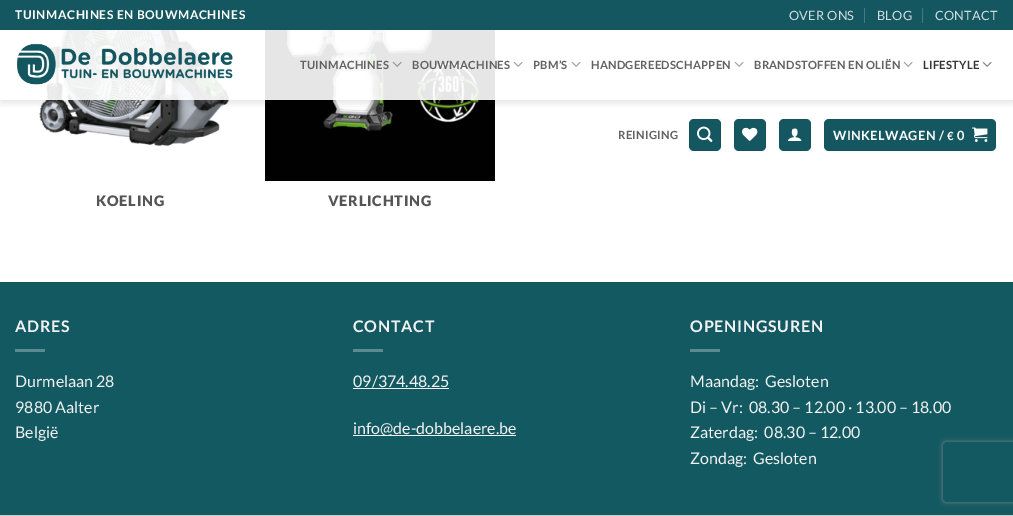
%!PS-Adobe-3.0
%%BoundingBox: 0 0 1013 516
%%LanguageLevel: 3
%%Pages: 1
%%EndComments
%%BeginProlog
/setalpha { dup .setfillconstantalpha .setstrokeconstantalpha } def
/rrect { 5 dict begin { /r /h /w /y /x } { exch def } forall
  x r add y moveto x w add y 2 copy h add r arct x w add y h add x 1 index r arct
  x y h add x y r arct x y 2 copy exch w add exch r arct closepath end } def
/softshadow { 12 dict begin { /a /b /q /h /w /y /x } { exch def } forall gsave /was 0 def
  9 -2 -9 { dup b mul 4 div /e exch def 1 sub .425 mul 2.718 exch exp 1 add a .99 .min exch div /now exch def
    1 1 now sub 1 was sub div sub setalpha /was now def
    w h .min e 2 mul add 0 gt { x e sub y e sub w e 2 mul add h e 2 mul add
      q e add b .6 mul add w h .min 2 div e add .min 0 .max rrect fill } if } for grestore end } def
/drawimage { 5 dict begin { /h /w /y /x /name } { exch def } forall
  gsave x y translate w h scale
  w h 8 [w 0 0 h 0 0] name (r) file false 3 colorimage grestore end } def
%%EndProlog
%%BeginSetup
<< /PageSize [1013 516] /PageUsesTransparency true >> setpagedevice
%%EndSetup
%%Page: 1 1
0 .pushpdf14devicefilter
0 516 translate 1 -1 scale
4 setmiterlimit
1 setgray
0 0 1013 516 rectfill
(images/9.raw) 39 30 191 117 drawimage
(images/10.raw) 265 30 230 151 drawimage
gsave
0 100 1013 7 rectclip
0 setgray
1 1 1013 100 0 5 0.15 softshadow
grestore
0.082 0.341 0.376 setrgbcolor
0 0 1013 30 rectfill
0.267 0.475 0.502 setrgbcolor
864 8 1 15 rectfill
922 8 1 15 rectfill
0.9 setalpha
1 setgray
45 30 450 70 rectfill
1 setalpha
(images/1.raw) 17 43 216 42 drawimage
(images/2.raw) 392 61 10 6 drawimage
(images/3.raw) 513 61 10 6 drawimage
(images/3.raw) 571 61 10 6 drawimage
(images/3.raw) 734 61 10 6 drawimage
(images/3.raw) 903 61 10 6 drawimage
(images/4.raw) 982 61 10 6 drawimage
0.082 0.341 0.376 setrgbcolor
689 119 32 32 5 rrect fill
0.05 setalpha
0 setgray
689.5 119.5 31 31 rectstroke
1 setalpha
(images/5.raw) 697 126 16 16 drawimage
0.082 0.341 0.376 setrgbcolor
734 119 32 32 5 rrect fill
0.05 setalpha
0 setgray
734.5 119.5 31 31 rectstroke
1 setalpha
(images/6.raw) 742 127 16 14 drawimage
0.082 0.341 0.376 setrgbcolor
779 119 32 32 5 rrect fill
0.05 setalpha
0 setgray
779.5 119.5 31 31 rectstroke
1 setalpha
(images/7.raw) 788 128 14 13 drawimage
0.082 0.341 0.376 setrgbcolor
824 119 172 32 5 rrect fill
0.05 setalpha
0 setgray
824.5 119.5 171 31 rectstroke
1 setalpha
(images/8.raw) 972 127 16 15 drawimage
0.071 0.349 0.38 setrgbcolor
0 283 1013 232 rectfill
0.067 0.333 0.361 setrgbcolor
0 282 1013 1 rectfill
0.349 0.545 0.565 setrgbcolor
15 349 30 3 rectfill
353 349 30 3 rectfill
0.945 setgray
353 388 96 1 rectfill
353 435 163 1 rectfill
0.349 0.545 0.565 setrgbcolor
690 349 30 3 rectfill
0.808 setgray
0 515 1013 1 rectfill
gsave
newpath 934 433 moveto 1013 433 lineto 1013 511 lineto 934 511 lineto closepath 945 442 moveto 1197 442 lineto 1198 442 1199 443 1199 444 curveto 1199 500 lineto 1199 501 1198 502 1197 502 curveto 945 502 lineto 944 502 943 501 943 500 curveto 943 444 lineto 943 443 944 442 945 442 curveto closepath eoclip newpath
0.502 setgray
943 442 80 60 2 2.5 1 softshadow
grestore
/Lato-Bold [12 0 0 -12 0 0] selectfont
1 setgray
15 19 moveto 0.6 0 (TUINMACHINES EN BOUWMACHINES) ashow
/Lato-Regular [12.75 0 0 -12.75 0 0] selectfont
0.816 0.867 0.875 setrgbcolor
789 20 moveto 0.25 0 (OVER ONS) ashow
877 20 moveto 0.25 0 (BLOG) ashow
935 20 moveto 0.25 0 (CONTACT) ashow
/Lato-Bold [11.25 0 0 -11.25 0 0] selectfont
0.384 setgray
300 69 moveto 0.25 0 (TUINMACHINES) ashow
412 69 moveto 0.25 0 (BOUWMACHINES) ashow
533 69 moveto 0.25 0 (PBM’S) ashow
591 69 moveto 0.25 0 (HANDGEREEDSCHAPPEN) ashow
754 69 moveto 0.25 0 (BRANDSTOFFEN EN OLIËN) ashow
0.212 setgray
923 69 moveto 0.25 0 (LIFESTYLE) ashow
0.384 setgray
618 139 moveto 0.25 0 (REINIGING) ashow
/Lato-Bold [12.75 0 0 -12.75 0 0] selectfont
1 setgray
833 140 moveto 0.4 0 (WINKELWAGEN /) ashow
/Lato-Bold [11.25 0 0 -11.25 0 0] selectfont
947 140 moveto 0.4 0 (€) ashow
/Lato-Bold [12.75 0 0 -12.75 0 0] selectfont
957 140 moveto 0.4 0 (0) ashow
/Lato-Black [14.5 0 0 -14.5 0 0] selectfont
0.333 setgray
96 206 moveto 0.75 0 (KOELING) ashow
328 206 moveto 0.75 0 (VERLICHTING) ashow
/Lato-Bold [16 0 0 -16 0 0] selectfont
0.945 setgray
15 332 moveto 0.75 0 (ADRES) ashow
/Lato-Regular [16 0 0 -16 0 0] selectfont
15 387 moveto (Durmelaan 28) show
15 413 moveto (9880 Aalter) show
15 438 moveto (België) show
/Lato-Bold [16 0 0 -16 0 0] selectfont
353 332 moveto 0.75 0 (CONTACT) ashow
/Lato-Regular [16 0 0 -16 0 0] selectfont
353 387 moveto (09/374.48.25) show
353 434 moveto (info@de-dobbelaere.be) show
/Lato-Bold [16 0 0 -16 0 0] selectfont
690 332 moveto 0.75 0 (OPENINGSUREN) ashow
/Lato-Regular [16 0 0 -16 0 0] selectfont
690 387 moveto (Maandag:  Gesloten) show
690 413 moveto (Di – Vr:  08.30 – 12.00 · 13.00 – 18.00) show
690 438 moveto (Zaterdag:  08.30 – 12.00) show
690 464 moveto (Zondag:  Gesloten) show
.poppdf14devicefilter showpage
%%EOF
